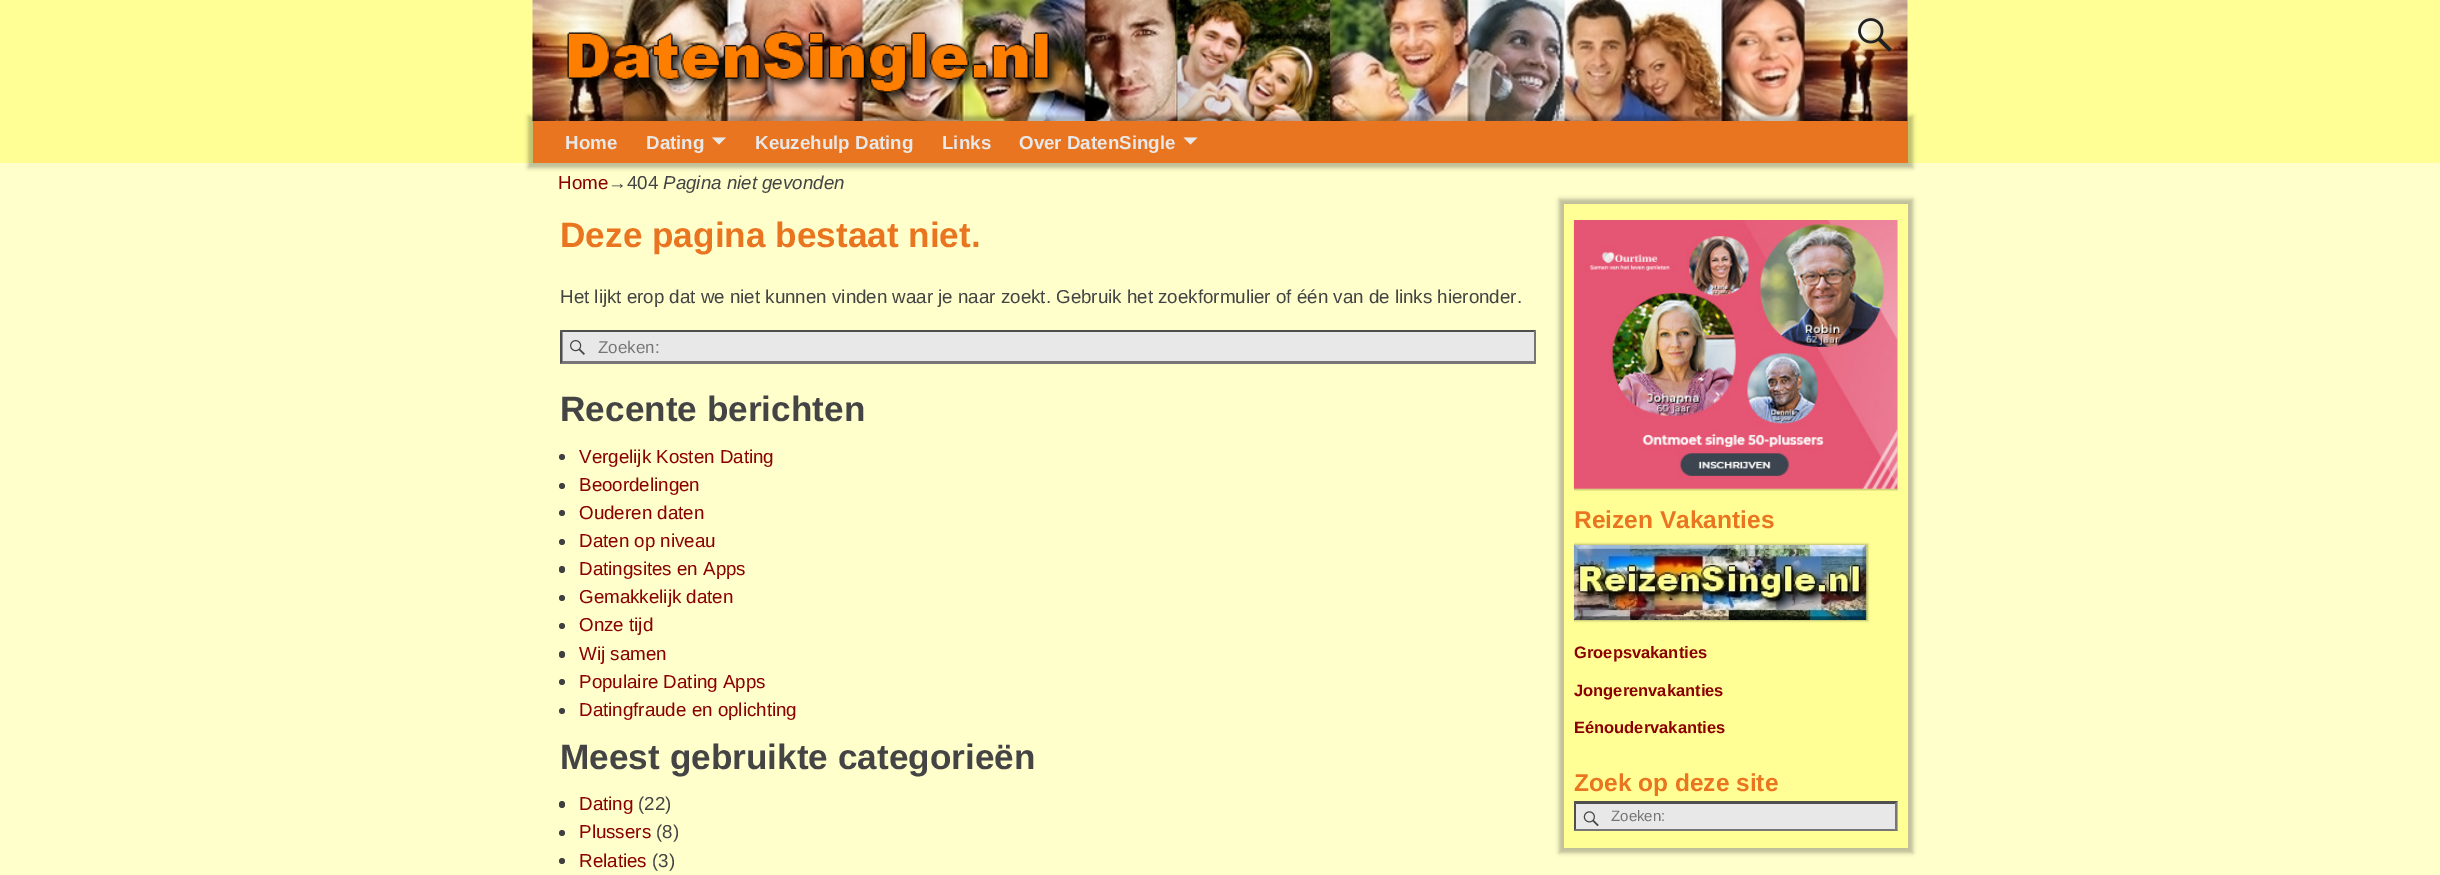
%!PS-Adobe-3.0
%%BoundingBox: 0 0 2440 875
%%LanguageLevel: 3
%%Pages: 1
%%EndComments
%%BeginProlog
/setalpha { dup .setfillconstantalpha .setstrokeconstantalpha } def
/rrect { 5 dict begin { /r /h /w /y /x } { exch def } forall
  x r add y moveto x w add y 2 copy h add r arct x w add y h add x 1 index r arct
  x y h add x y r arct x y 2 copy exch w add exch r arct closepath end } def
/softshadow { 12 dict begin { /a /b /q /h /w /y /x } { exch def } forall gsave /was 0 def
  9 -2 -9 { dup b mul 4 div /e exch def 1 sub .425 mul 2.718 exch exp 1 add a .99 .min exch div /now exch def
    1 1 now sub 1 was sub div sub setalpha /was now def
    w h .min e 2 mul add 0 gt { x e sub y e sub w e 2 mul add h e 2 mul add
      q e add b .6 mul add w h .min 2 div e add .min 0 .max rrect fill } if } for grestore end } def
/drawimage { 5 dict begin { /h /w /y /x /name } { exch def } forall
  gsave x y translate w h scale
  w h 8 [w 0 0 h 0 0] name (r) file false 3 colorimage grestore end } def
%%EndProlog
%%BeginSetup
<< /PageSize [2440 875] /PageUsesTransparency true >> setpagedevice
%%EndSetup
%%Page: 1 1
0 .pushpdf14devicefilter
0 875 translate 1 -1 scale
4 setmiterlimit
1 1 0.8 setrgbcolor
0 0 2440 875 rectfill
1 1 0.584 setrgbcolor
0 0 2440 163 rectfill
(images/1.raw) 532 0 1376 122 drawimage
(images/2.raw) 1858 18 34 34 drawimage
0 setgray
528 116 1385 52 0 2 0.25 softshadow
0.918 0.459 0.129 setrgbcolor
533 121 1375 42 rectfill
0.91 setgray
newpath 712 137.5 moveto 726 137.5 lineto 719 144.5 lineto closepath fill
newpath 1183.5 137.5 moveto 1197.5 137.5 lineto 1190.5 144.5 lineto closepath fill
560 330 976 34 rectfill
(images/3.raw) 570 340 15 15 drawimage
0.31 setgray
newpath 560 330 moveto 1536 330 lineto 1534 332 lineto 562 332 lineto closepath fill
0.463 setgray
newpath 1536 330 moveto 1536 364 lineto 1534 361 lineto 1534 332.5 lineto closepath fill
newpath 1536 364 moveto 560 364 lineto 562 361 lineto 1534 361 lineto closepath fill
0.31 setgray
newpath 560 364 moveto 560 330 lineto 562.5 332.5 lineto 562.5 361 lineto closepath fill
0.251 setgray
newpath 562 457 3 0 360 arc closepath fill
newpath 562 486 3 0 360 arc closepath fill
newpath 562 513 3 0 360 arc closepath fill
newpath 562 542 3 0 360 arc closepath fill
559 566 6 7 3 rrect fill
newpath 562 598 3 0 360 arc closepath fill
newpath 562 626 3 0 360 arc closepath fill
559 651 6 7 3 rrect fill
newpath 562 682 3 0 360 arc closepath fill
newpath 562 711 3 0 360 arc closepath fill
559 801 6 7 3 rrect fill
newpath 562 833 3 0 360 arc closepath fill
newpath 562 861 3 0 360 arc closepath fill
0 setgray
1559 199 354 654 0 2 0.25 softshadow
1 1 0.584 setrgbcolor
1564 204 344 644 rectfill
gsave
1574 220 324 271 rectclip
0 setgray
1573 219 326 271 0 1 0.25 softshadow
grestore
(images/4.raw) 1573 220 325 269 drawimage
gsave
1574 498 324 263 rectclip
0 setgray
1573 544 295 77 0 1 0.25 softshadow
grestore
(images/5.raw) 1573 545 294 75 drawimage
0.91 setgray
1574 801 324 30 rectfill
(images/6.raw) 1583 811 16 16 drawimage
0.31 setgray
newpath 1574 801 moveto 1898 801 lineto 1895 804 lineto 1576 804 lineto closepath fill
0.463 setgray
newpath 1897.5 801 moveto 1897.5 831 lineto 1895 829 lineto 1895 804 lineto closepath fill
newpath 1898 831 moveto 1574 831 lineto 1576 829 lineto 1895 829 lineto closepath fill
0.31 setgray
newpath 1574 831 moveto 1574 801 lineto 1576 804 lineto 1576 829 lineto closepath fill
/LiberationSans-Bold [18.75 0 0 -18.75 0 0] selectfont
0.91 setgray
565 149 moveto (Home) show
646 149 moveto (Dating) show
755 149 moveto (Keuzehulp Dating) show
942 149 moveto (Links) show
1019 149 moveto (Over DatenSingle) show
/LiberationSans-Regular [18.75 0 0 -18.75 0 0] selectfont
0.545 0 0 setrgbcolor
558 189 moveto (Home) show
0.267 setgray
608 189 moveto (→404) show
/LiberationSans-Italic [18.75 0 0 -18.75 0 0] selectfont
663 189 moveto (Pagina niet gevonden) show
/LiberationSans-Bold [35.2 0 0 -35.2 0 0] selectfont
0.918 0.459 0.129 setrgbcolor
560 247 moveto (Deze pagina bestaat niet.) show
/LiberationSans-Regular [18.75 0 0 -18.75 0 0] selectfont
0.267 setgray
560 303 moveto (Het lijkt erop dat we niet kunnen vinden waar je naar zoekt. Gebruik het zoekformulier of één van de links hieronder.) show
/LiberationSans-Regular [17 0 0 -17 0 0] selectfont
0.459 setgray
598 353 moveto (Zoeken:) show
/LiberationSans-Bold [35.2 0 0 -35.2 0 0] selectfont
0.267 setgray
560 421 moveto (Recente berichten) show
/LiberationSans-Regular [18.75 0 0 -18.75 0 0] selectfont
0.545 0 0 setrgbcolor
579 463 moveto (Vergelijk Kosten Dating) show
579 491 moveto (Beoordelingen) show
579 519 moveto (Ouderen daten) show
579 547 moveto (Daten op niveau) show
579 575 moveto (Datingsites en Apps) show
579 603 moveto (Gemakkelijk daten) show
579 631 moveto (Onze tijd) show
579 660 moveto (Wij samen) show
579 688 moveto (Populaire Dating Apps) show
579 716 moveto (Datingfraude en oplichting) show
/LiberationSans-Bold [35.2 0 0 -35.2 0 0] selectfont
0.267 setgray
560 769 moveto (Meest gebruikte categorieën) show
/LiberationSans-Regular [18.75 0 0 -18.75 0 0] selectfont
0.545 0 0 setrgbcolor
579 810 moveto (Dating) show
0.267 setgray
638 810 moveto (\(22\)) show
0.545 0 0 setrgbcolor
579 838 moveto (Plussers) show
0.267 setgray
656 838 moveto (\(8\)) show
0.545 0 0 setrgbcolor
579 867 moveto (Relaties) show
0.267 setgray
652 867 moveto (\(3\)) show
/LiberationSans-Bold [24.5 0 0 -24.5 0 0] selectfont
0.918 0.459 0.129 setrgbcolor
1574 528 moveto (Reizen Vakanties) show
/LiberationSans-Bold [16.5 0 0 -16.5 0 0] selectfont
0.545 0 0 setrgbcolor
1574 658 moveto (Groepsvakanties) show
1574 696 moveto (Jongerenvakanties) show
1574 733 moveto (Eénoudervakanties) show
/LiberationSans-Bold [24.5 0 0 -24.5 0 0] selectfont
0.918 0.459 0.129 setrgbcolor
1574 791 moveto (Zoek op deze site) show
/LiberationSans-Regular [15 0 0 -15 0 0] selectfont
0.459 setgray
1611 821 moveto (Zoeken:) show
.poppdf14devicefilter showpage
%%EOF
